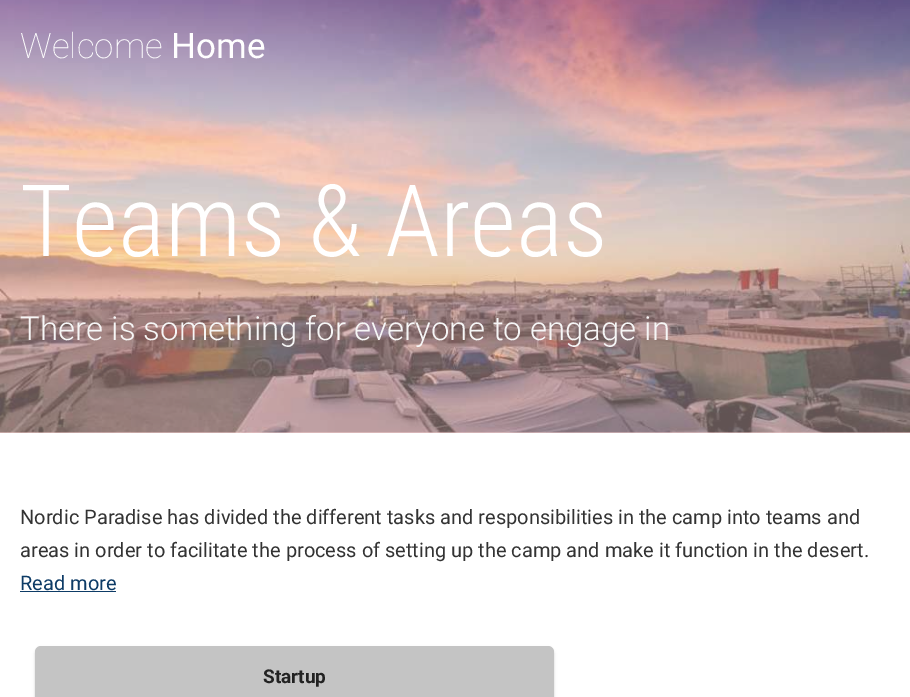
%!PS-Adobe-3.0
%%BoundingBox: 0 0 910 697
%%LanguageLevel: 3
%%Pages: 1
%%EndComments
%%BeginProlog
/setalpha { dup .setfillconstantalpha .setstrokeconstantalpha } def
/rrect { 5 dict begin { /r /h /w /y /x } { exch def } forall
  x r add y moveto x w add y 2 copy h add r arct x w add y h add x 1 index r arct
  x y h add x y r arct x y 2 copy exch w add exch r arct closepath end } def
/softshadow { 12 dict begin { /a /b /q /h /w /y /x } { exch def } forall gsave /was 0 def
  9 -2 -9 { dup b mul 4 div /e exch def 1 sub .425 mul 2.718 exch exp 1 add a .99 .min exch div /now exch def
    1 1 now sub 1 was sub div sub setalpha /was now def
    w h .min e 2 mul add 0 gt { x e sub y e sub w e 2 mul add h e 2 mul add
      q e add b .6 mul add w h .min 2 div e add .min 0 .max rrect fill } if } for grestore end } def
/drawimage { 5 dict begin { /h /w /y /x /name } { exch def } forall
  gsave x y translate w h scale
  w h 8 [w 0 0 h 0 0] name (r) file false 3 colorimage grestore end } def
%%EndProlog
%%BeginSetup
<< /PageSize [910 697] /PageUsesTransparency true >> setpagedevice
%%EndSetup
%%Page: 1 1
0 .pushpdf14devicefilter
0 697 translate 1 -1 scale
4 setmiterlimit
1 setgray
0 0 910 697 rectfill
gsave newpath 0 0 moveto 910 0 lineto 910 433 lineto 0 433 lineto closepath clip newpath
<< /ShadingType 2 /ColorSpace /DeviceRGB /Coords [455 0 455 433] /Extend [true true] /Function << /FunctionType 3 /Domain [0 1] /Functions [<< /FunctionType 2 /Domain [0 1] /C0 [0.467 0.141 0.486] /C1 [0.953 0.812 0.812] /N 1 >> << /FunctionType 2 /Domain [0 1] /C0 [0.953 0.812 0.812] /C1 [0.953 0.812 0.812] /N 1 >>] /Bounds [0.29] /Encode [0 1 0 1] >> >> shfill grestore
(images/1.raw) 0 0 910 433 drawimage
0.051 0.231 0.4 setrgbcolor
20 591 96 1 rectfill
0 setgray
35 648 519 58 6 1 0.12 softshadow
35 648 519 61 6 2 0.06 softshadow
0.769 setgray
35 646 519 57 6 rrect fill
/Roboto-Thin [35 0 0 -35 0 0] selectfont
1 setgray
20 58 moveto (Welcome) show
/Roboto-Regular [35 0 0 -35 0 0] selectfont
171 58 moveto (Home) show
/RobotoCondensed-Light [100 0 0 -100 0 0] selectfont
20 256 moveto (Teams & Areas) show
/Roboto-Light [33 0 0 -33 0 0] selectfont
0.965 setgray
20 340 moveto (There is something for everyone to engage in) show
/Roboto-Regular [20 0 0 -20 0 0] selectfont
0.2 setgray
20 524 moveto (Nordic Paradise has divided the different tasks and responsibilities in the camp into teams and) show
20 557 moveto (areas in order to facilitate the process of setting up the camp and make it function in the desert.) show
0.051 0.231 0.4 setrgbcolor
20 590 moveto (Read more) show
/Roboto-Bold [19 0 0 -19 0 0] selectfont
0.133 setgray
263 683 moveto (Startup) show
.poppdf14devicefilter showpage
%%EOF
